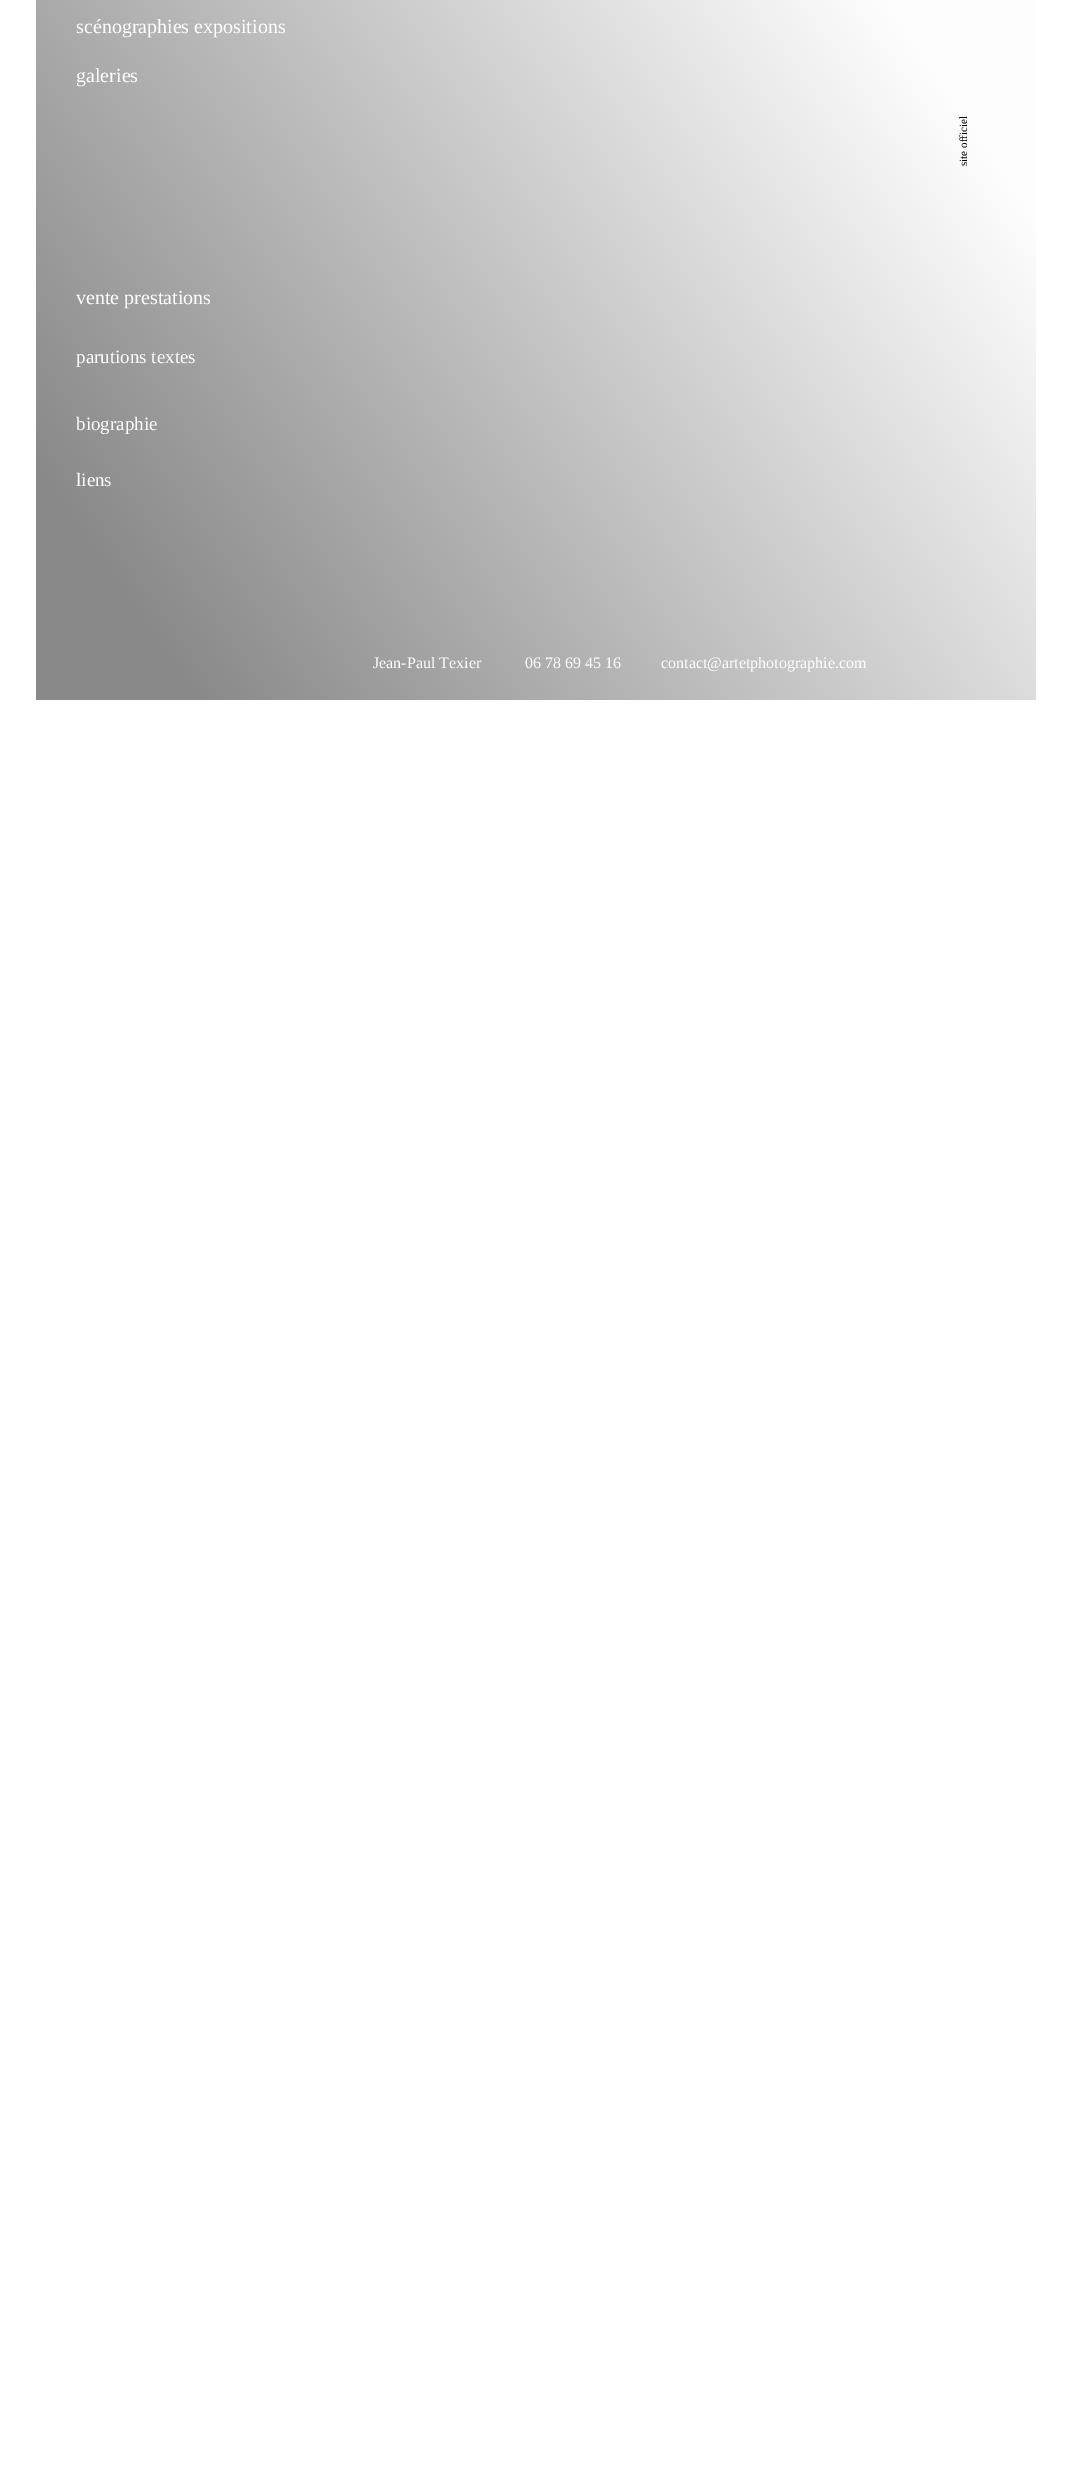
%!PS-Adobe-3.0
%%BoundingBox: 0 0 1071 2492
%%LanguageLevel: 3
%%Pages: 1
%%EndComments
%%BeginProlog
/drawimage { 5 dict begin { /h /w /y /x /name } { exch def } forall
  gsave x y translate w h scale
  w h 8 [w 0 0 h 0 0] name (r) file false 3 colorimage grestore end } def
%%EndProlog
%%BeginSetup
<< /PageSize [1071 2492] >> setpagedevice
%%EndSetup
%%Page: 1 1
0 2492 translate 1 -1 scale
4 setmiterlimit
1 setgray
0 0 1071 2492 rectfill
(images/1.raw) 36 0 1000 700 drawimage
/LiberationSerif-Regular [20 0 0 -20 0 0] selectfont
76 33 moveto (scénographies expositions) show
76 82 moveto (galeries) show
/LiberationSerif-Regular [11 0 0 -11 0 0] selectfont
0 setgray
gsave 967 166 translate -90 rotate 0 0 moveto (site officiel) show grestore
/LiberationSerif-Regular [20 0 0 -20 0 0] selectfont
1 setgray
76 304 moveto (vente prestations) show
/LiberationSerif-Regular [19 0 0 -19 0 0] selectfont
76 363 moveto (parutions textes) show
76 430 moveto (biographie) show
76 486 moveto (liens) show
/LiberationSerif-Regular [16 0 0 -16 0 0] selectfont
373 668 moveto (Jean-Paul Texier           06 78 69 45 16          contact@artetphotographie.com) show
showpage
%%EOF
